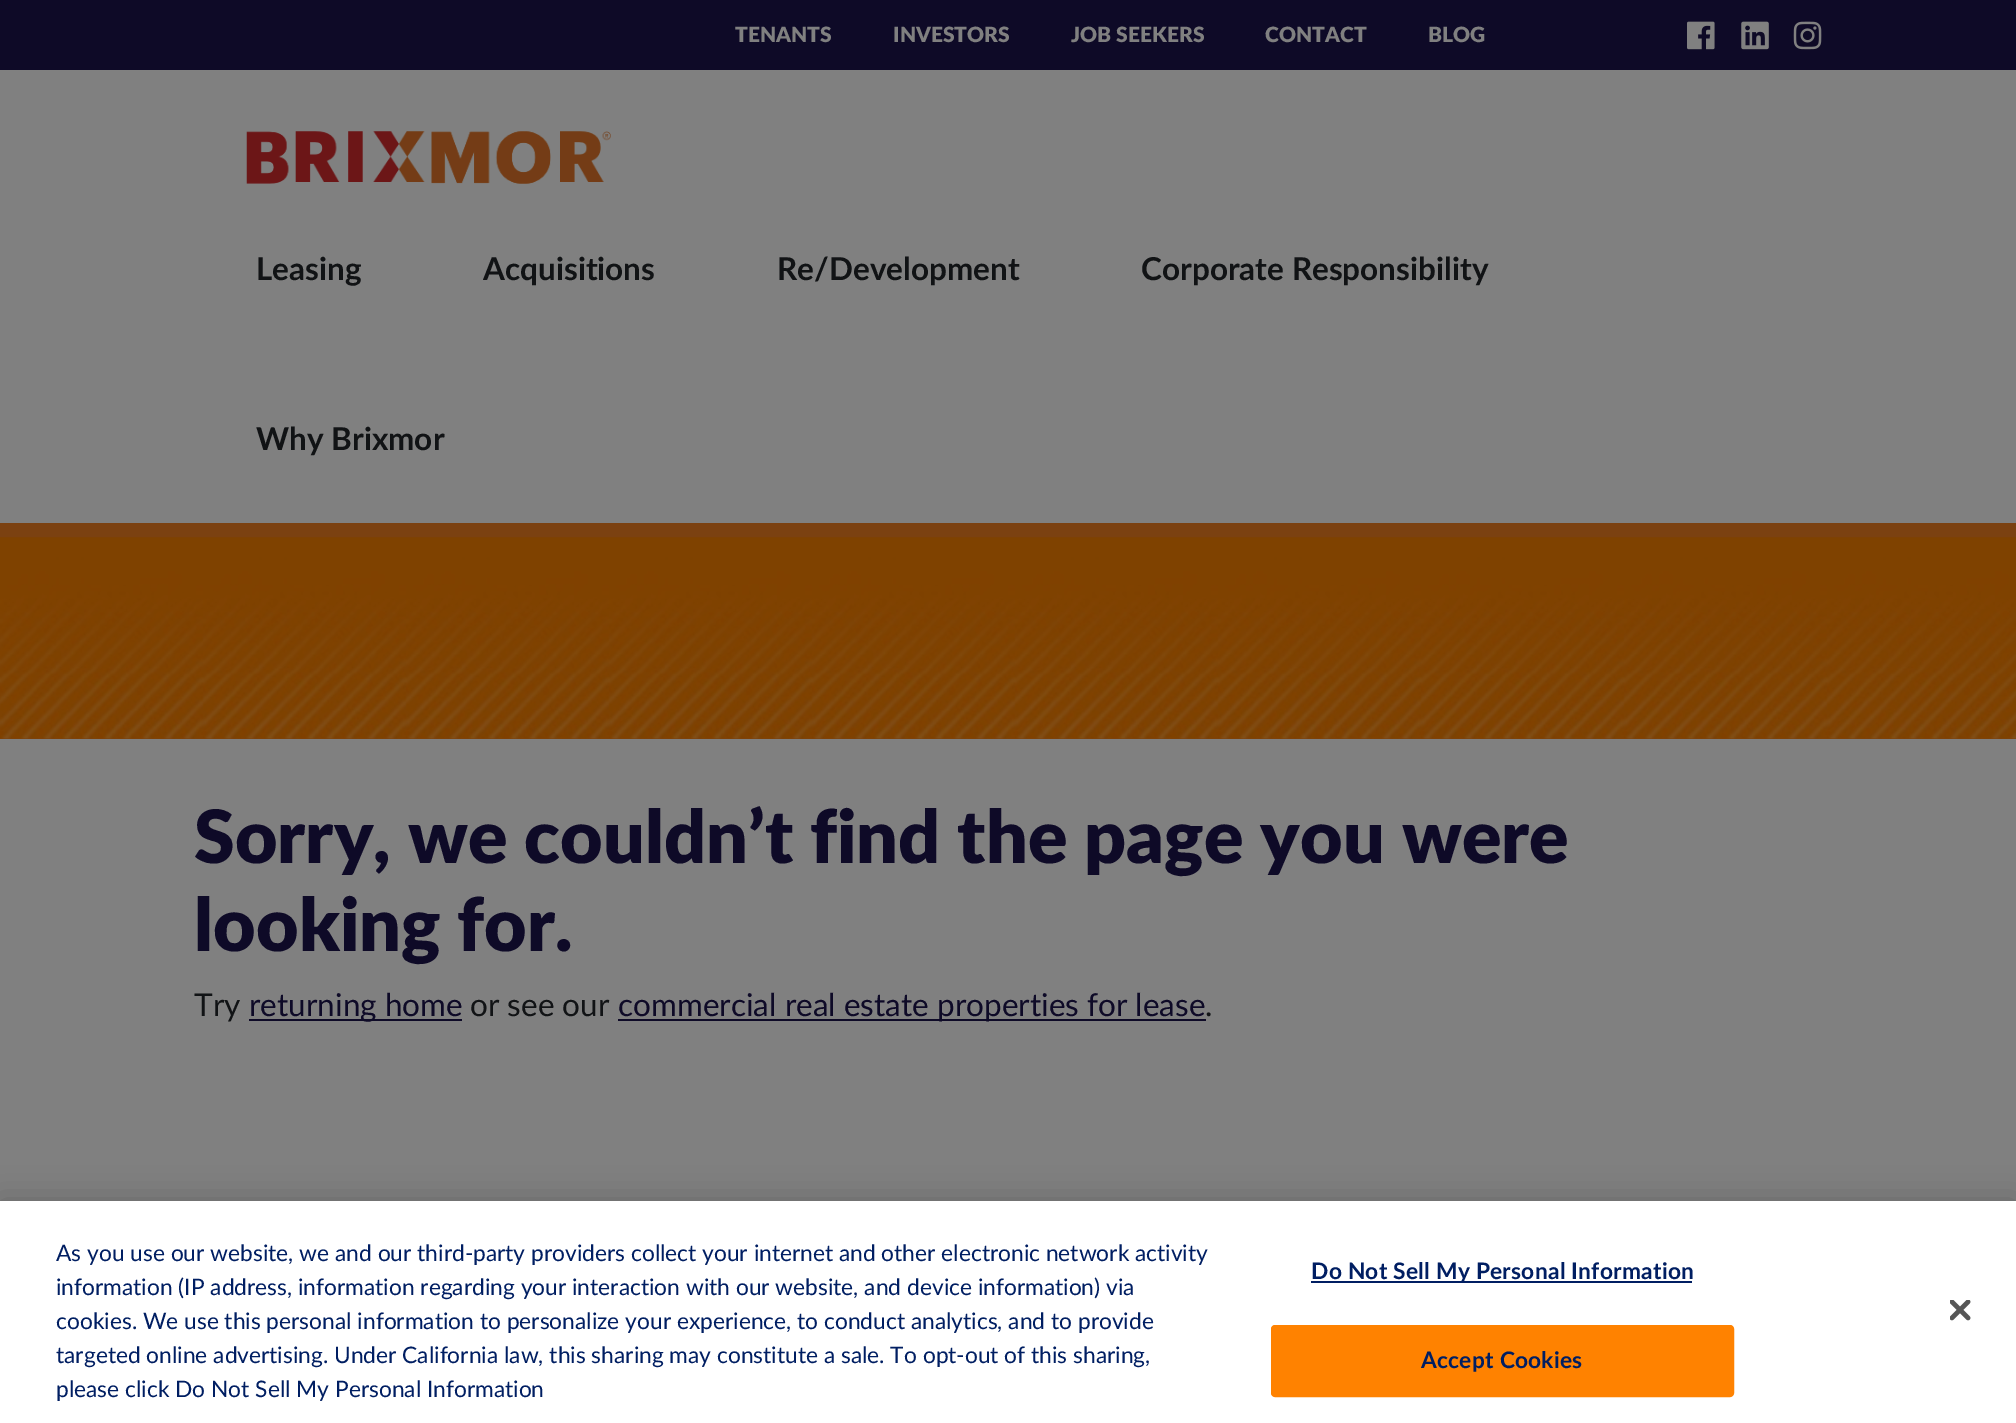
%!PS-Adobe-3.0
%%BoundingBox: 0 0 2016 1423
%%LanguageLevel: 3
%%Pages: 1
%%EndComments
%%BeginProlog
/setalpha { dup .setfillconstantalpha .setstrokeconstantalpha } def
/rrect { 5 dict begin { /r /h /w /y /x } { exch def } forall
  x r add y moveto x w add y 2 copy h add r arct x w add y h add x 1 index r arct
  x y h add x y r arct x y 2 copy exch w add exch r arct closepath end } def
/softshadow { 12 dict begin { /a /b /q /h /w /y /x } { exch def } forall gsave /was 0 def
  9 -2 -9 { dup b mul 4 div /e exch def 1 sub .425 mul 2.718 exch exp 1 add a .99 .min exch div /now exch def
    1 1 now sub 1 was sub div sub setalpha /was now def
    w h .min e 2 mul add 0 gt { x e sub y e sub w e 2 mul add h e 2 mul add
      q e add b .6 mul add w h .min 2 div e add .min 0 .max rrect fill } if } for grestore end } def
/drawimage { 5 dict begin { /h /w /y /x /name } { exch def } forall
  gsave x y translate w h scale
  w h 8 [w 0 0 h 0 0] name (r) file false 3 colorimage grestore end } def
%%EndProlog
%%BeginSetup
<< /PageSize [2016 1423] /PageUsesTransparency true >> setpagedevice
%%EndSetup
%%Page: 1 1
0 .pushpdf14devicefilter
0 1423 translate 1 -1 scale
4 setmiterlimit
0.502 setgray
0 0 2016 1423 rectfill
0.482 0.255 0.067 setrgbcolor
0 523 2016 216 rectfill
0.055 0.039 0.153 setrgbcolor
0 0 2016 70 rectfill
(images/1.raw) 1687 21 28 29 drawimage
(images/2.raw) 1741 21 28 29 drawimage
(images/3.raw) 1793 21 29 29 drawimage
(images/4.raw) 246 131 365 53 drawimage
(images/5.raw) 0 537 2016 202 drawimage
249 1019 213 2 rectfill
618 1019 588 2 rectfill
0 setgray
0 1201 2016 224 0 16 0.2 softshadow
1 setgray
0 1201 2016 222 rectfill
0 0.118 0.384 setrgbcolor
1311 1281 381 2 rectfill
1 0.51 0 setrgbcolor
1272 1326 461 70 3 rrect gsave fill grestore
2 setlinewidth
stroke
(images/6.raw) 1950 1300 21 21 drawimage
/Lato-Black [21 0 0 -21 0 0] selectfont
0.502 setgray
735 42 moveto (TENANTS) show
893 42 moveto (INVESTORS) show
1071 42 moveto (JOB SEEKERS) show
1265 42 moveto (CONTACT) show
1428 42 moveto (BLOG) show
/Lato-Bold [31.5 0 0 -31.5 0 0] selectfont
0.067 0.075 0.082 setrgbcolor
256 280 moveto (Leasing) show
483 280 moveto (Acquisitions) show
777 280 moveto (Re/Development) show
1141 280 moveto (Corporate Responsibility) show
256 450 moveto (Why Brixmor) show
/Lato-Black [73.5 0 0 -73.5 0 0] selectfont
0.055 0.039 0.153 setrgbcolor
194 863 moveto (Sorry, we couldn’t find the page you were) show
194 951 moveto (looking for.) show
/Lato-Regular [31.5 0 0 -31.5 0 0] selectfont
0.067 0.075 0.082 setrgbcolor
194 1016 moveto (Try) show
0.055 0.039 0.153 setrgbcolor
249 1016 moveto (returning home) show
0.067 0.075 0.082 setrgbcolor
470 1016 moveto (or see our) show
0.055 0.039 0.153 setrgbcolor
618 1016 moveto (commercial real estate properties for lease) show
0.067 0.075 0.082 setrgbcolor
1205 1016 moveto (.) show
/Lato-Regular [22.75 0 0 -22.75 0 0] selectfont
0 0.118 0.384 setrgbcolor
56 1261 moveto (As you use our website, we and our third-party providers collect your internet and other electronic network activity) show
56 1295 moveto (information \(IP address, information regarding your interaction with our website, and device information\) via) show
56 1329 moveto (cookies. We use this personal information to personalize your experience, to conduct analytics, and to provide) show
56 1363 moveto (targeted online advertising. Under California law, this sharing may constitute a sale. To opt-out of this sharing,) show
56 1397 moveto (please click Do Not Sell My Personal Information) show
/Lato-Bold [22.75 0 0 -22.75 0 0] selectfont
1311 1279 moveto 0.25 0 (Do Not Sell My Personal Information) ashow
1421 1368 moveto 0.25 0 (Accept Cookies) ashow
.poppdf14devicefilter showpage
%%EOF
